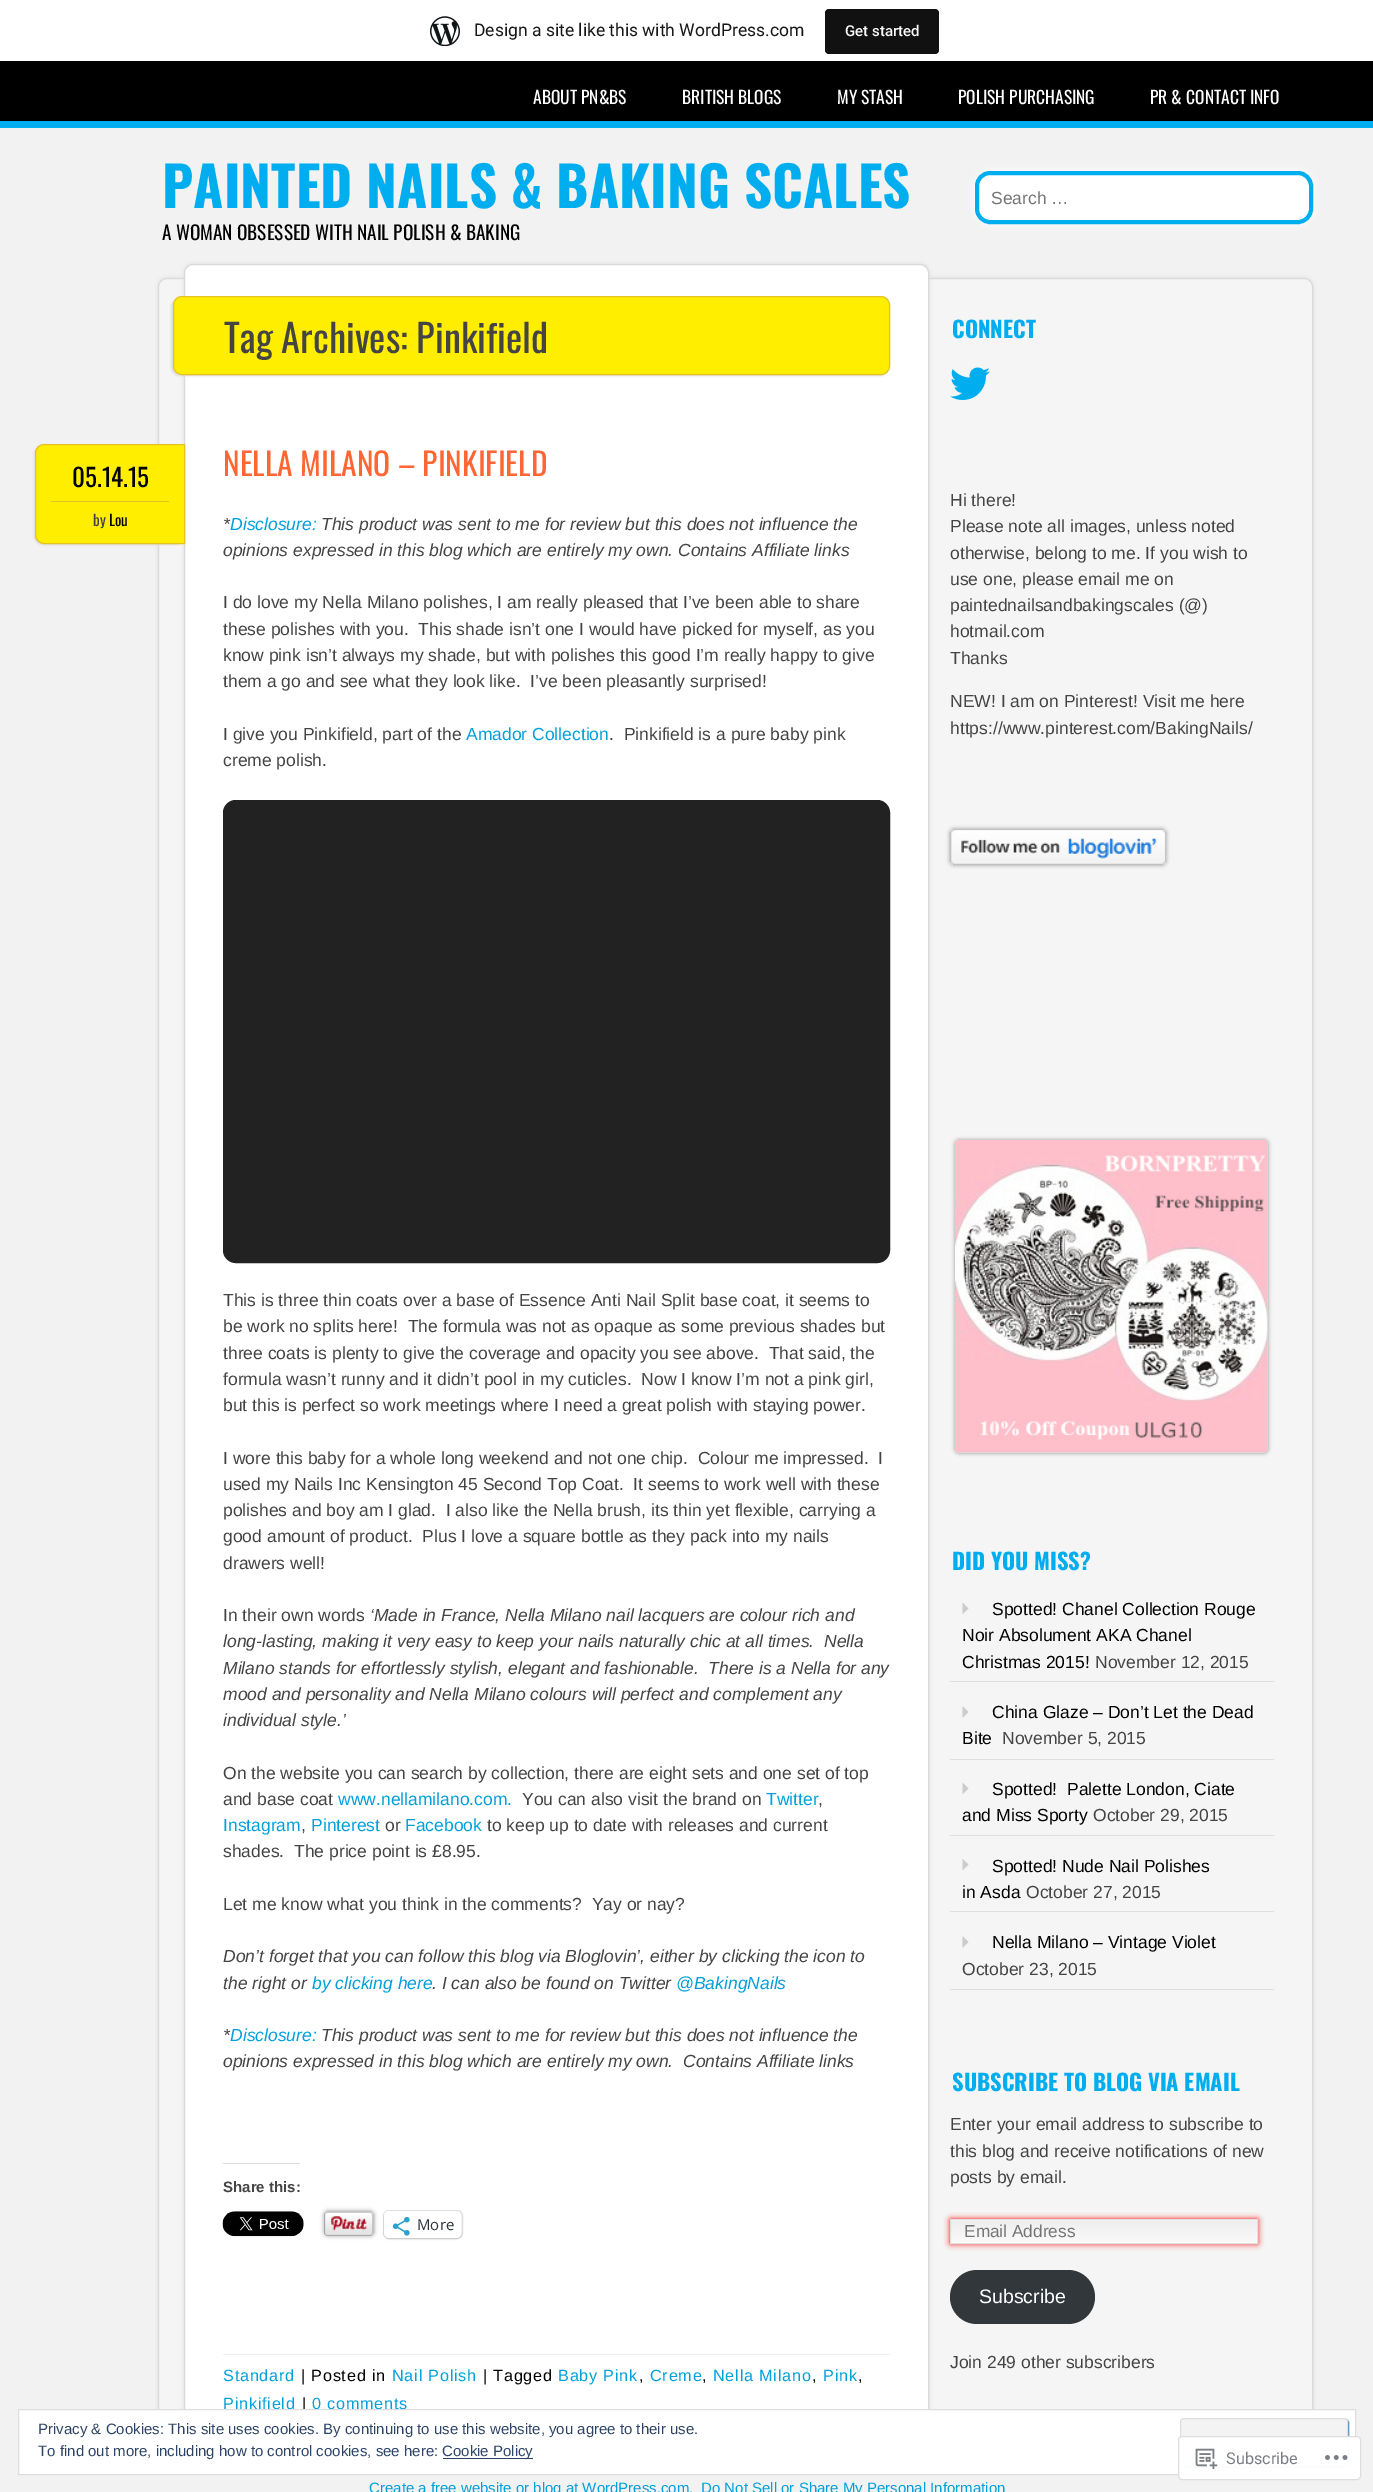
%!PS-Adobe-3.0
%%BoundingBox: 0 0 1373 2492
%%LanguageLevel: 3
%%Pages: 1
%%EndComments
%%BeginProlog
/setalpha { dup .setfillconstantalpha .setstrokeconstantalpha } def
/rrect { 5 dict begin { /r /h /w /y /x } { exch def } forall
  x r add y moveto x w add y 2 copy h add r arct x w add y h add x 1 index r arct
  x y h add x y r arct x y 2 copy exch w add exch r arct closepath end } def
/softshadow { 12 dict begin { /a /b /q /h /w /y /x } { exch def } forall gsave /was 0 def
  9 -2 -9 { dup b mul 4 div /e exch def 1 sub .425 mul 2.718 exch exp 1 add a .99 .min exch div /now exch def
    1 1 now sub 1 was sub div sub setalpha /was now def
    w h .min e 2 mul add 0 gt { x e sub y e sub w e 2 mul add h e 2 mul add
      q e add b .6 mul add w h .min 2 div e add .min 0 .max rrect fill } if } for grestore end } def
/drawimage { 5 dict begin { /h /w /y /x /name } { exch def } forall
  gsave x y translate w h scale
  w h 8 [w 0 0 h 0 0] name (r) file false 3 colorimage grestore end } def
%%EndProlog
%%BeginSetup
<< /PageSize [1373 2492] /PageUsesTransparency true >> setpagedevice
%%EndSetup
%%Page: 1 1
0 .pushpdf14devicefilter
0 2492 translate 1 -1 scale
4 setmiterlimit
0.949 setgray
0 0 1373 2492 rectfill
1 setgray
0 0 1373 61 rectfill
(images/1.raw) 430 16 30 30 drawimage
0.067 setgray
825 9 114 45 4 rrect fill
0 setgray
0 61 1373 60 rectfill
0 0.682 0.937 setrgbcolor
0 121 1373 7 rectfill
1 setgray
975 171 338 53 15 4 1 softshadow
977 173 334 49 13 rrect gsave fill grestore
0 0.682 0.937 setrgbcolor
4 setlinewidth
stroke
0.855 setgray
158 278 1155 2176 9 2 1 softshadow
0.961 setgray
158.5 278.5 1154 2175 8.5 rrect gsave fill grestore
0.855 setgray
1 setlinewidth
stroke
184 264 745 2202 9 2 1 softshadow
1 setgray
184.5 264.5 744 2201 8.5 rrect gsave fill grestore
0.855 setgray
stroke
171 298 718 78 9 1 1 softshadow
1 0.933 0 setrgbcolor
173.5 296.5 716 78 8.5 rrect gsave fill grestore
0.898 0.761 0.129 setrgbcolor
stroke
0.855 setgray
34 445 150 100 9 1 1 softshadow
1 0.933 0 setrgbcolor
newpath 44 444.5 moveto 184.5 444.5 lineto 184.5 543.5 lineto 44 543.5 lineto 39.5 543.5 35.5 539.5 35.5 535 curveto 35.5 453 lineto 35.5 448.5 39.5 444.5 44 444.5 curveto closepath gsave fill grestore
0.898 0.761 0.129 setrgbcolor
stroke
51 501 118 1 rectfill
0.133 setgray
235.5 812.5 642 438 0.5 rrect gsave fill grestore
25 setlinewidth
stroke
0.863 0.863 0.871 setrgbcolor
223 2163 77 1 rectfill
(images/2.raw) 222 2211 82 26 drawimage
gsave
newpath 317 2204 moveto 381 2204 lineto 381 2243 lineto 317 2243 lineto closepath 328 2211 moveto 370 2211 lineto 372 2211 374 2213 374 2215 curveto 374 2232 lineto 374 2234 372 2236 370 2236 curveto 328 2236 lineto 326 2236 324 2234 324 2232 curveto 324 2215 lineto 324 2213 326 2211 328 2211 curveto closepath eoclip newpath
0 setgray
324 2211 50 25 4 2 0.4 softshadow
grestore
(images/3.raw) 323 2211 51 26 drawimage
0.878 setgray
1 setlinewidth
383.5 2210.5 79 28 5.5 rrect stroke
0 setgray
384 2213 77 26 5 1 0.12 softshadow
1 setgray
384 2211 77 27 5 rrect fill
(images/4.raw) 392 2216 18 20 drawimage
0.937 setgray
223 2354 667 1 rectfill
(images/5.raw) 950 367 40 33 drawimage
0 setgray
950 829 216 36 4 2 0.4 softshadow
(images/6.raw) 950 829 216 36 drawimage
955 1140 313 313 4 2 0.4 softshadow
(images/7.raw) 955 1140 313 313 drawimage
0.871 setgray
950 1681 324 1 rectfill
0.8 setgray
newpath 962.5 1614 moveto 968.5 1608.5 lineto 962.5 1602.5 lineto closepath fill
0.871 setgray
950 1759 324 1 rectfill
0.8 setgray
newpath 962.5 1718 moveto 968.5 1712 lineto 962.5 1706 lineto closepath fill
0.871 setgray
950 1835 324 1 rectfill
0.8 setgray
newpath 962.5 1794 moveto 968.5 1788.5 lineto 962.5 1782.5 lineto closepath fill
0.871 setgray
950 1911 324 1 rectfill
0.8 setgray
newpath 962.5 1870.5 moveto 968.5 1864.5 lineto 962.5 1859 lineto closepath fill
0.871 setgray
950 1989 324 1 rectfill
0.8 setgray
newpath 962.5 1948 moveto 968.5 1942 lineto 962.5 1936 lineto closepath fill
1 0 0 setrgbcolor
950 2219 308 25 1 3 1 softshadow
gsave newpath 951 2220 moveto 1257 2220 lineto 1257 2243 lineto 951 2243 lineto closepath clip newpath
<< /ShadingType 2 /ColorSpace /DeviceRGB /Coords [951 2220 951 2251] /Extend [true true] /Function << /FunctionType 3 /Domain [0 1] /Functions [<< /FunctionType 2 /Domain [0 1] /C0 [1 1 1] /C1 [0.933 0.933 0.933] /N 1 >> << /FunctionType 2 /Domain [0 1] /C0 [0.933 0.933 0.933] /C1 [1 1 1] /N 1 >>] /Bounds [0.04] /Encode [0 1 0 1] >> >> shfill grestore
0.878 setgray
950.5 2219.5 307 24 0.5 rrect stroke
0.196 0.216 0.235 setrgbcolor
950 2270 145 54 27 rrect fill
/Roboto-Regular [17.5 0 0 -17.5 0 0] selectfont
0.09 setgray
474 36 moveto (Design a site like this with WordPress.com) show
/Roboto-Medium [15 0 0 -15 0 0] selectfont
0.965 0.969 0.969 setrgbcolor
845 36 moveto (Get started) show
/Oswald-Regular [17.5 0 0 -17.5 0 0] selectfont
1 setgray
533 104 moveto (ABOUT PN&BS) show
682 104 moveto (BRITISH BLOGS) show
837 104 moveto (MY STASH) show
958 104 moveto (POLISH PURCHASING) show
1150 104 moveto (PR & CONTACT INFO) show
/Oswald-Bold [55 0 0 -55 0 0] selectfont
0 0.682 0.937 setrgbcolor
162 208 moveto (PAINTED NAILS & BAKING SCALES) show
/Oswald-Regular [19.25 0 0 -19.25 0 0] selectfont
0 setgray
162 240 moveto (A WOMAN OBSESSED WITH NAIL POLISH & BAKING) show
/LiberationSans-Regular [17.5 0 0 -17.5 0 0] selectfont
0.459 setgray
991 204 moveto (Search …) show
/Oswald-Regular [38.5 0 0 -38.5 0 0] selectfont
0.267 setgray
224 353 moveto (Tag Archives: Pinkifield) show
/Oswald-Regular [25 0 0 -25 0 0] selectfont
0 setgray
72 487 moveto (05.14.15) show
/Oswald-Regular [15 0 0 -15 0 0] selectfont
0.267 setgray
93 526 moveto (by) show
0 setgray
109 526 moveto (Lou) show
/Oswald-Regular [31.5 0 0 -31.5 0 0] selectfont
1 0.4 0.2 setrgbcolor
223 476 moveto (NELLA MILANO – PINKIFIELD) show
/LiberationSans-Italic [17.5 0 0 -17.5 0 0] selectfont
0.267 setgray
223 530 moveto (*) show
0.004 0.627 0.859 setrgbcolor
230 530 moveto (Disclosure:) show
0.267 setgray
321 530 moveto (This product was sent to me for review but this does not influence the) show
223 556 moveto (opinions expressed in this blog which are entirely my own. Contains Affiliate links) show
/LiberationSans-Regular [17.5 0 0 -17.5 0 0] selectfont
223 608 moveto (I do love my Nella Milano polishes, I am really pleased that I’ve been able to share) show
223 635 moveto (these polishes with you.  This shade isn’t one I would have picked for myself, as you) show
223 661 moveto (know pink isn’t always my shade, but with polishes this good I’m really happy to give) show
223 687 moveto (them a go and see what they look like.  I’ve been pleasantly surprised!) show
223 740 moveto (I give you Pinkifield, part of the) show
0.004 0.627 0.859 setrgbcolor
466 740 moveto (Amador Collection) show
0.267 setgray
609 740 moveto (.  Pinkifield is a pure baby pink) show
223 766 moveto (creme polish.) show
223 1306 moveto (This is three thin coats over a base of Essence Anti Nail Split base coat, it seems to) show
223 1332 moveto (be work no splits here!  The formula was not as opaque as some previous shades but) show
223 1359 moveto (three coats is plenty to give the coverage and opacity you see above.  That said, the) show
223 1385 moveto (formula wasn’t runny and it didn’t pool in my cuticles.  Now I know I’m not a pink girl,) show
223 1411 moveto (but this is perfect so work meetings where I need a great polish with staying power.) show
223 1464 moveto (I wore this baby for a whole long weekend and not one chip.  Colour me impressed.  I) show
223 1490 moveto (used my Nails Inc Kensington 45 Second Top Coat.  It seems to work well with these) show
223 1516 moveto (polishes and boy am I glad.  I also like the Nella brush, its thin yet flexible, carrying a) show
223 1542 moveto (good amount of product.  Plus I love a square bottle as they pack into my nails) show
223 1569 moveto (drawers well!) show
223 1621 moveto (In their own words) show
/LiberationSans-Italic [17.5 0 0 -17.5 0 0] selectfont
370 1621 moveto (‘Made in France, Nella Milano nail lacquers are colour rich and) show
223 1647 moveto (long-lasting, making it very easy to keep your nails naturally chic at all times.  Nella) show
223 1674 moveto (Milano stands for effortlessly stylish, elegant and fashionable.  There is a Nella for any) show
223 1700 moveto (mood and personality and Nella Milano colours will perfect and complement any) show
223 1726 moveto (individual style.’) show
/LiberationSans-Regular [17.5 0 0 -17.5 0 0] selectfont
223 1779 moveto (On the website you can search by collection, there are eight sets and one set of top) show
223 1805 moveto (and base coat) show
0.004 0.627 0.859 setrgbcolor
338 1805 moveto (www.nellamilano.com.) show
0.267 setgray
522 1805 moveto (You can also visit the brand on) show
0.004 0.627 0.859 setrgbcolor
766 1805 moveto (Twitter) show
0.267 setgray
818 1805 moveto (,) show
0.004 0.627 0.859 setrgbcolor
223 1831 moveto (Instagram) show
0.267 setgray
301 1831 moveto (,) show
0.004 0.627 0.859 setrgbcolor
311 1831 moveto (Pinterest) show
0.267 setgray
385 1831 moveto (or) show
0.004 0.627 0.859 setrgbcolor
405 1831 moveto (Facebook) show
0.267 setgray
487 1831 moveto (to keep up to date with releases and current) show
223 1857 moveto (shades.  The price point is £8.95.) show
223 1910 moveto (Let me know what you think in the comments?  Yay or nay?) show
/LiberationSans-Italic [17.5 0 0 -17.5 0 0] selectfont
223 1962 moveto (Don’t forget that you can follow this blog via Bloglovin’, either by clicking the icon to) show
223 1989 moveto (the right or) show
0.004 0.627 0.859 setrgbcolor
312 1989 moveto (by clicking here) show
0.267 setgray
432 1989 moveto (. I can also be found on Twitter) show
0.004 0.627 0.859 setrgbcolor
676 1989 moveto (@BakingNails) show
0.267 setgray
223 2041 moveto (*) show
0.004 0.627 0.859 setrgbcolor
230 2041 moveto (Disclosure:) show
0.267 setgray
321 2041 moveto (This product was sent to me for review but this does not influence the) show
223 2067 moveto (opinions expressed in this blog which are entirely my own.  Contains Affiliate links) show
/LiberationSans-Bold [15 0 0 -15 0 0] selectfont
223 2192 moveto (Share this:) show
/OpenSans-Regular [15 0 0 -15 0 0] selectfont
0.173 0.2 0.22 setrgbcolor
417 2230 moveto (More) show
/LiberationSans-Regular [16.25 0 0 -16.25 0 0] selectfont
0.004 0.627 0.859 setrgbcolor
223 2381 moveto 0.75 0 (Standard) ashow
0 setgray
301 2381 moveto 0.75 0 (| Posted in) ashow
0.004 0.627 0.859 setrgbcolor
392 2381 moveto 0.75 0 (Nail Polish) ashow
0 setgray
483 2381 moveto 0.75 0 (| Tagged) ashow
0.004 0.627 0.859 setrgbcolor
558 2381 moveto 0.75 0 (Baby Pink) ashow
650 2381 moveto 0.75 0 (Creme) ashow
713 2381 moveto 0.75 0 (Nella Milano) ashow
823 2381 moveto 0.75 0 (Pink) ashow
0 setgray
639 2381 moveto 0.75 0 (,) ashow
702 2381 moveto 0.75 0 (,) ashow
812 2381 moveto 0.75 0 (,) ashow
858 2381 moveto 0.75 0 (,) ashow
0.004 0.627 0.859 setrgbcolor
223 2409 moveto 0.75 0 (Pinkifield) ashow
0 setgray
302 2409 moveto 0.75 0 (|) ashow
0.004 0.627 0.859 setrgbcolor
312 2409 moveto 0.75 0 (0 comments) ashow
/Oswald-Bold [22.5 0 0 -22.5 0 0] selectfont
0 0.682 0.937 setrgbcolor
952 338 moveto (CONNECT) show
/LiberationSans-Regular [17.5 0 0 -17.5 0 0] selectfont
0.267 setgray
950 506 moveto (Hi there!) show
950 532 moveto (Please note all images, unless noted) show
950 559 moveto (otherwise, belong to me. If you wish to) show
950 585 moveto (use one, please email me on) show
950 611 moveto (paintednailsandbakingscales \(@\)) show
950 637 moveto (hotmail.com) show
950 664 moveto (Thanks) show
950 707 moveto (NEW! I am on Pinterest! Visit me here) show
950 734 moveto (https://www.pinterest.com/BakingNails/) show
/Oswald-Bold [22.5 0 0 -22.5 0 0] selectfont
0 0.682 0.937 setrgbcolor
952 1570 moveto (DID YOU MISS?) show
/LiberationSans-Regular [17.5 0 0 -17.5 0 0] selectfont
0 setgray
992 1615 moveto (Spotted! Chanel Collection Rouge) show
962 1641 moveto (Noir Absolument AKA Chanel) show
962 1668 moveto (Christmas 2015!) show
0.267 setgray
1095 1668 moveto (November 12, 2015) show
0 setgray
992 1718 moveto (China Glaze – Don’t Let the Dead) show
962 1744 moveto (Bite) show
0.267 setgray
1002 1744 moveto (November 5, 2015) show
0 setgray
992 1795 moveto (Spotted!  Palette London, Ciate) show
962 1821 moveto (and Miss Sporty) show
0.267 setgray
1093 1821 moveto (October 29, 2015) show
0 setgray
992 1872 moveto (Spotted! Nude Nail Polishes) show
962 1898 moveto (in Asda) show
0.267 setgray
1026 1898 moveto (October 27, 2015) show
0 setgray
992 1948 moveto (Nella Milano – Vintage Violet) show
0.267 setgray
962 1975 moveto (October 23, 2015) show
/Oswald-Bold [22.5 0 0 -22.5 0 0] selectfont
0 0.682 0.937 setrgbcolor
952 2091 moveto (SUBSCRIBE TO BLOG VIA EMAIL) show
/LiberationSans-Regular [17.5 0 0 -17.5 0 0] selectfont
0.267 setgray
950 2130 moveto (Enter your email address to subscribe to) show
950 2157 moveto (this blog and receive notifications of new) show
950 2183 moveto (posts by email.) show
/LiberationSans-Regular [17.25 0 0 -17.25 0 0] selectfont
0.459 setgray
964 2237 moveto (Email Address) show
/LiberationSans-Regular [19.5 0 0 -19.5 0 0] selectfont
1 setgray
979 2303 moveto (Subscribe) show
/LiberationSans-Regular [17.5 0 0 -17.5 0 0] selectfont
0.267 setgray
950 2368 moveto (Join 249 other subscribers) show
/LiberationSans-Regular [15 0 0 -15 0 0] selectfont
0.004 0.627 0.859 setrgbcolor
369 2493 moveto (Create a free website or blog at WordPress.com.) show
701 2493 moveto (Do Not Sell or Share My Personal Information) show
1 setgray
newpath 18.5 2409.5 moveto 1355.5 2409.5 lineto 1355.5 2474.5 lineto 18.5 2474.5 lineto closepath gsave fill grestore
0.871 setgray
stroke
0.18 0.267 0.404 setrgbcolor
38 2434 moveto (Privacy & Cookies: This site uses cookies. By continuing to use this website, you agree to their use.) show
0.18 0.416 0.655 setrgbcolor
1181 2419 168 49 4 0.5 1 softshadow
0.953 setgray
1180.5 2418.5 167 47 3.5 rrect gsave fill grestore
0.871 setgray
stroke
0.18 0.267 0.404 setrgbcolor
38 2456 moveto (To find out more, including how to control cookies, see here:) show
443 2458 90 1 rectfill
442 2456 moveto (Cookie Policy) show
0.98 setalpha
1 setgray
1178 2436 183 44 4 rrect fill
0.863 0.863 0.871 setrgbcolor
1178.5 2436.5 182 43 3.5 rrect stroke
1 setalpha
(images/8.raw) 1195 2448 23 22 drawimage
/Roboto-Regular [16.25 0 0 -16.25 0 0] selectfont
0.478 0.494 0.518 setrgbcolor
1226 2464 moveto (Subscribe) show
(images/9.raw) 1325 2455 23 5 drawimage
.poppdf14devicefilter showpage
%%EOF
